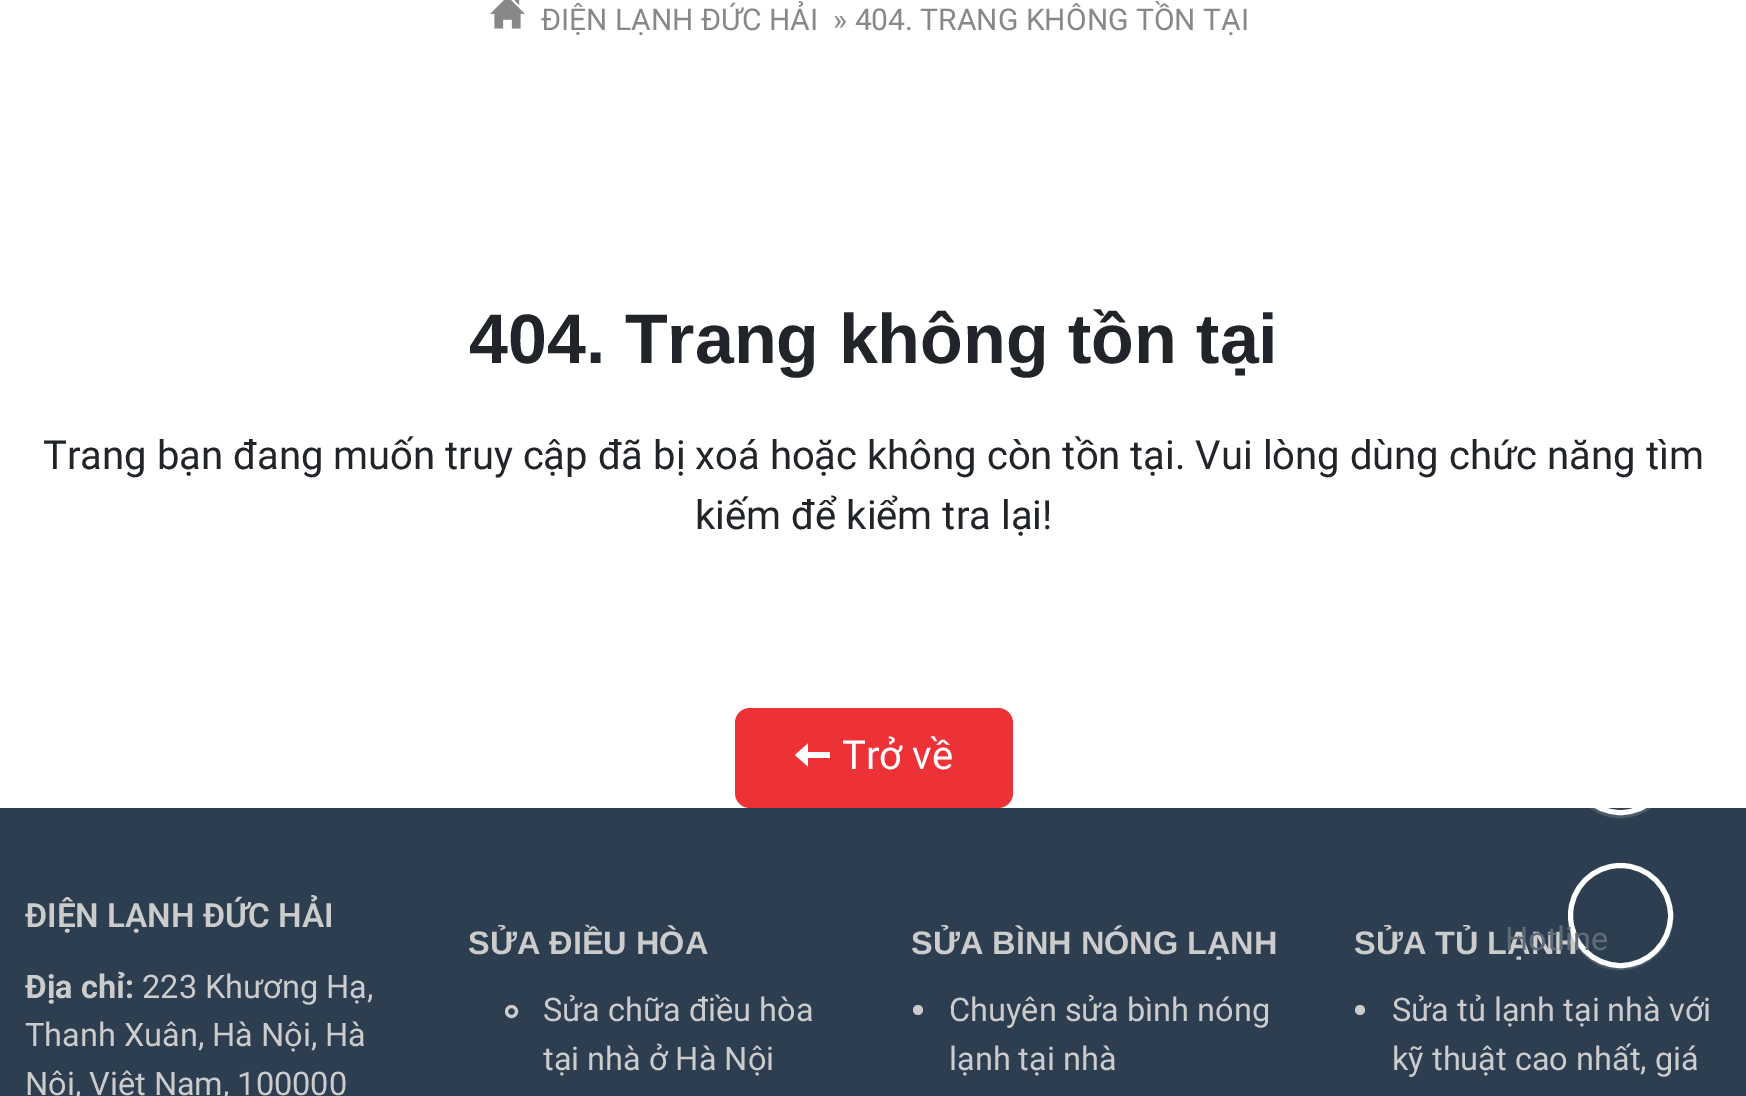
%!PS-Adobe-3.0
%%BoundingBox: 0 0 1746 1096
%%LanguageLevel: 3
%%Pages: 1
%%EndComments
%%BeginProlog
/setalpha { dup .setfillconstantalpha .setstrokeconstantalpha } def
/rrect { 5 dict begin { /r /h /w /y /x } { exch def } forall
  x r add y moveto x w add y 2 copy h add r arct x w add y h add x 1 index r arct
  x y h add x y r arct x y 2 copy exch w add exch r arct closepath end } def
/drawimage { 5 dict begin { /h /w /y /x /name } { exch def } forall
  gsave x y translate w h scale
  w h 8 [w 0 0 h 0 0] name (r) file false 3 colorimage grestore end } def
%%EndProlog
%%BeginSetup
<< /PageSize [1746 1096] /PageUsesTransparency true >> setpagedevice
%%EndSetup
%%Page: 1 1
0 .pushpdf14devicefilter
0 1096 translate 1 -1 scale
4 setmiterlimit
1 setgray
0 0 1746 1096 rectfill
(images/1.raw) 490 0 35 29 drawimage
0.929 0.196 0.216 setrgbcolor
735 708 278 100 15 rrect fill
1 setgray
newpath 795 755 moveto 808 743.5 lineto 808 752 lineto 830 752 lineto 830 758 lineto 808 758 lineto 808 766.5 lineto closepath fill
0.173 0.243 0.314 setrgbcolor
0 808 1746 288 rectfill
0.8 setgray
3 setlinewidth
newpath 511.5 1011.5 5 0 360 arc closepath stroke
newpath 918 1010 5 0 360 arc closepath fill
newpath 1360 1010 5 0 360 arc closepath fill
0.15 setalpha
1 setgray
newpath 1568 773 moveto 1570 785 1576 797 1586 805 curveto 1624 838 1682 804 1672 755 curveto 1678 802 1623 833 1586 803 curveto 1577 795 1571 784 1568 773 curveto closepath fill
1 setalpha
5 setlinewidth
newpath 1620.5 762.5 50 0 360 arc closepath stroke
/Roboto-Regular [30 0 0 -30 0 0] selectfont
0.533 setgray
541 30 moveto (ĐIỆN LẠNH ĐỨC HẢI) show
833 30 moveto (» 404. TRANG KHÔNG TỒN TẠI) show
/LiberationSans-Bold [70 0 0 -70 0 0] selectfont
0.129 0.145 0.161 setrgbcolor
469 363 moveto (404. Trang không tồn tại) show
/Roboto-Regular [40 0 0 -40 0 0] selectfont
43 469 moveto (Trang bạn đang muốn truy cập đã bị xoá hoặc không còn tồn tại. Vui lòng dùng chức năng tìm) show
695 529 moveto (kiếm để kiểm tra lại!) show
1 setgray
842 769 moveto (Trở về) show
/Roboto-SemiBold [33.25 0 0 -33.25 0 0] selectfont
0.8 setgray
25 927 moveto (ĐIỆN LẠNH ĐỨC HẢI) show
/Roboto-Bold [32.5 0 0 -32.5 0 0] selectfont
25 998 moveto (Địa chỉ:) show
/Roboto-Regular [32.5 0 0 -32.5 0 0] selectfont
142 998 moveto (223 Khương Hạ,) show
25 1046 moveto (Thanh Xuân, Hà Nội, Hà) show
25 1095 moveto (Nội, Việt Nam, 100000) show
/LiberationSans-Bold [32.5 0 0 -32.5 0 0] selectfont
468 954 moveto (SỬA ĐIỀU HÒA) show
/Roboto-Regular [32.5 0 0 -32.5 0 0] selectfont
543 1021 moveto (Sửa chữa điều hòa) show
543 1070 moveto (tại nhà ở Hà Nội) show
/LiberationSans-Bold [32.5 0 0 -32.5 0 0] selectfont
911 954 moveto (SỬA BÌNH NÓNG LẠNH) show
/Roboto-Regular [32.5 0 0 -32.5 0 0] selectfont
949 1021 moveto (Chuyên sửa bình nóng) show
949 1070 moveto (lạnh tại nhà) show
/LiberationSans-Bold [32.5 0 0 -32.5 0 0] selectfont
1354 954 moveto (SỬA TỦ LẠNH) show
/Roboto-Regular [32.5 0 0 -32.5 0 0] selectfont
1392 1021 moveto (Sửa tủ lạnh tại nhà với) show
1392 1070 moveto (kỹ thuật cao nhất, giá) show
0.15 setalpha
1 setgray
newpath 1569 927 moveto 1571 939 1577 950 1587 958 curveto 1625 990 1683 954 1672 906 curveto 1673 916 1672 926 1668 935 curveto 1649 982 1580 976 1569 927 curveto closepath fill
1 setalpha
newpath 1620.5 915.5 50 0 360 arc closepath stroke
0.373 0.424 0.471 setrgbcolor
1505 950 moveto (Hotline) show
.poppdf14devicefilter showpage
%%EOF
